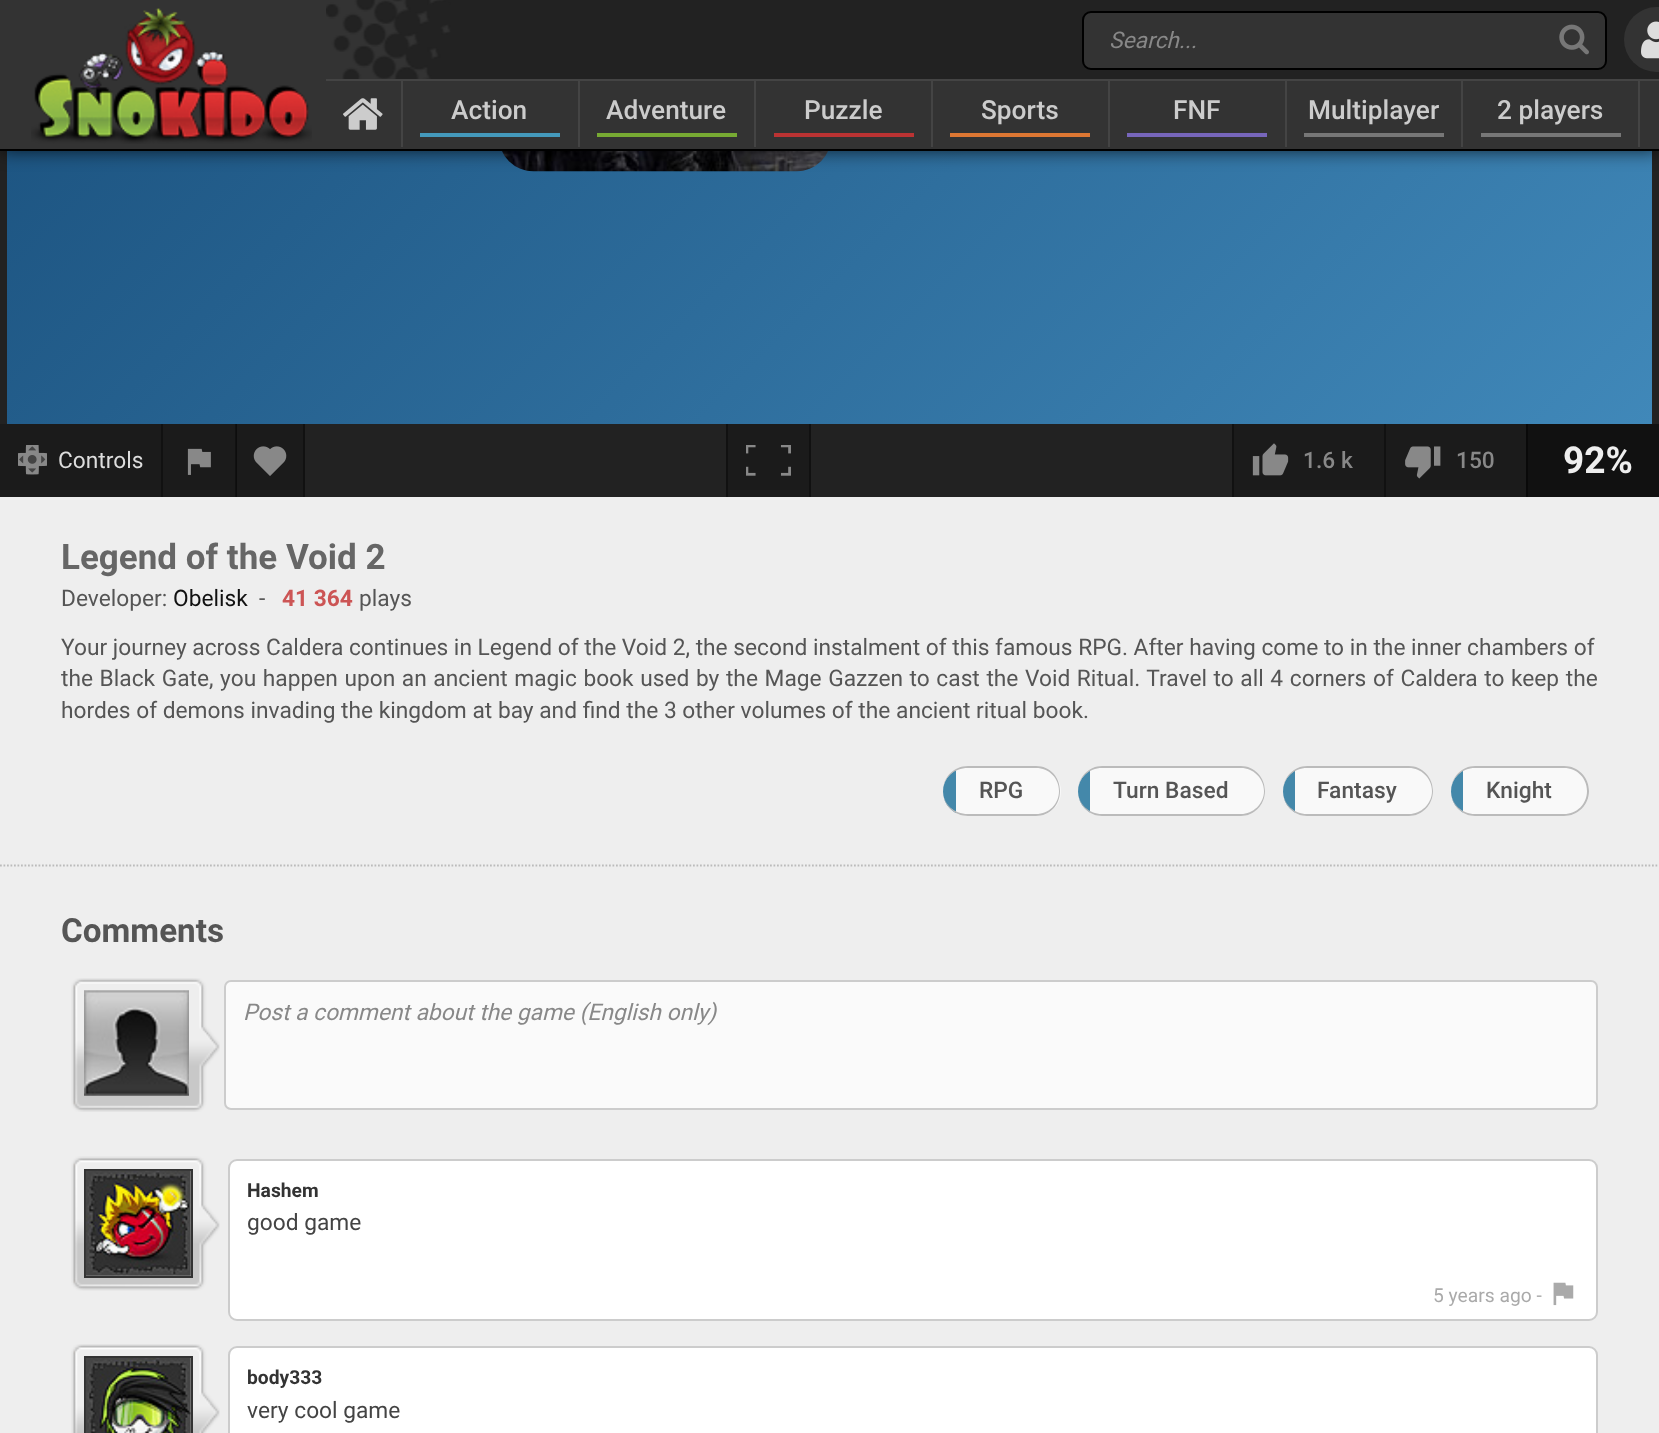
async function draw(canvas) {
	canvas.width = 1659;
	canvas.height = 1433;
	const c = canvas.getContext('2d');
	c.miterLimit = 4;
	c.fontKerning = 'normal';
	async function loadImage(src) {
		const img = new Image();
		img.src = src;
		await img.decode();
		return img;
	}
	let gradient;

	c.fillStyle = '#fff';
	c.fillRect(0, 0, 1659, 1433);
	gradient = c.createLinearGradient(201, -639, 1458, 618);
	gradient.addColorStop(0, '#134672');
	gradient.addColorStop(1, '#4088b9');
	c.fillStyle = gradient;
	c.fillRect(7, 151, 1645, 273);
	c.fillStyle = '#222';
	c.beginPath();
	c.moveTo(18, -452);
	c.lineTo(1642, -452);
	c.bezierCurveTo(1651, -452, 1659, -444, 1659, -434);
	c.lineTo(1659, 424);
	c.lineTo(0, 424);
	c.lineTo(0, -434);
	c.bezierCurveTo(0, -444, 8, -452, 18, -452);
	c.closePath();
	c.moveTo(18, -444);
	c.lineTo(1642, -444);
	c.bezierCurveTo(1647, -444, 1652, -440, 1652, -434);
	c.lineTo(1652, 424);
	c.lineTo(7, 424);
	c.lineTo(7, -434);
	c.bezierCurveTo(7, -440, 12, -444, 18, -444);
	c.closePath();
	c.fill('evenodd');
	c.drawImage(await loadImage('img6.png'), 502, 151, 326, 21);
	c.fillStyle = '#000000b3';
	c.filter = 'blur(9px)';
	c.beginPath();
	c.rect(0, 0, 1659, 151);
	c.fill();
	c.filter = 'none';
	c.fillStyle = '#333';
	c.fillRect(0, 0, 1659, 149);
	c.fillStyle = '#000';
	c.fillRect(0, 149, 1659, 2);
	c.drawImage(await loadImage('img1.png'), 31, 8, 281, 136);
	c.drawImage(await loadImage('img2.png'), 326, 0, 1333, 79);
	c.fillStyle = '#444';
	c.fillRect(326, 79, 1333, 2);
	c.fillStyle = '#333';
	c.beginPath();
	c.roundRect(1083, 12, 523, 57, 8);
	c.fill();
	c.strokeStyle = '#000';
	c.lineWidth = 2;
	c.stroke();
	c.font = 'italic 22.75px Roboto';
	c.fillStyle = '#888';
	c.fillText('Search...', 1109, 48);
	c.drawImage(await loadImage('img3.png'), 1559, 24, 30, 31);
	c.fillStyle = '#333';
	c.beginPath();
	c.arc(1656.5, 39.5, 32.5, 0, 2 * Math.PI);
	c.fill();
	c.drawImage(await loadImage('img4.png'), 1641, 21, 18, 38);
	c.fillStyle = '#444';
	c.fillRect(401, 81, 2, 66);
	c.drawImage(await loadImage('img5.png'), 343, 98, 40, 32);
	c.fillRect(578, 81, 2, 66);
	c.fillStyle = '#49b';
	c.fillRect(420, 133, 140, 4);
	c.font = '500 26.25px Roboto';
	c.fillStyle = '#ccc';
	c.fillText('Action', 451, 119);
	c.fillStyle = '#444';
	c.fillRect(754, 81, 2, 66);
	c.fillStyle = '#7a3';
	c.fillRect(597, 133, 140, 4);
	c.fillStyle = '#ccc';
	c.fillText('Adventure', 606, 119);
	c.fillStyle = '#444';
	c.fillRect(931, 81, 2, 66);
	c.fillStyle = '#b33';
	c.fillRect(774, 133, 140, 4);
	c.fillStyle = '#ccc';
	c.fillText('Puzzle', 804, 119);
	c.fillStyle = '#444';
	c.fillRect(1108, 81, 2, 66);
	c.fillStyle = '#d73';
	c.fillRect(950, 133, 140, 4);
	c.fillStyle = '#ccc';
	c.fillText('Sports', 981, 119);
	c.fillStyle = '#444';
	c.fillRect(1285, 81, 2, 66);
	c.fillStyle = '#76b';
	c.fillRect(1127, 133, 140, 4);
	c.fillStyle = '#ccc';
	c.fillText('FNF', 1173, 119);
	c.fillStyle = '#444';
	c.fillRect(1461, 81, 2, 66);
	c.fillStyle = '#777';
	c.fillRect(1304, 133, 140, 4);
	c.fillStyle = '#ccc';
	c.fillText('Multiplayer', 1308, 119);
	c.fillStyle = '#444';
	c.fillRect(1638, 81, 2, 66);
	c.fillStyle = '#777';
	c.fillRect(1481, 133, 140, 4);
	c.fillStyle = '#ccc';
	c.fillText('2 players', 1497, 119);
	for (const [x, y, w, h, color] of [
		[237, 424, 995, 73, '#222'],
		[0, 424, 161, 73, '#1b1b1b'],
		[161, 424, 2, 73, '#111'],
	]) {
		c.fillStyle = color;
		c.fillRect(x, y, w, h);
	}
	c.drawImage(await loadImage('img7.png'), 18, 445, 29, 30);
	c.font = '22.75px Roboto';
	c.fillStyle = '#ddd';
	c.fillText('Controls', 58, 468);
	c.fillStyle = '#1b1b1b';
	c.fillRect(163, 424, 72, 73);
	c.fillStyle = '#111';
	c.fillRect(235, 424, 2, 73);
	c.drawImage(await loadImage('img8.png'), 187, 448, 24, 27);
	c.fillStyle = '#00000033';
	c.fillRect(236, 424, 67, 73);
	c.fillStyle = '#111';
	c.fillRect(303, 424, 2, 73);
	c.drawImage(await loadImage('img9.png'), 253, 446, 34, 30);
	for (const [x, y, w, h, color] of [
		[728, 424, 81, 73, '#1b1b1b'],
		[809, 424, 2, 73, '#111'],
		[726, 424, 2, 73, '#111'],
	]) {
		c.fillStyle = color;
		c.fillRect(x, y, w, h);
	}
	c.drawImage(await loadImage('img10.png'), 746, 445, 45, 31);
	c.fillStyle = '#1b1b1b';
	c.fillRect(1234, 424, 150, 73);
	c.fillStyle = '#111';
	c.fillRect(1232, 424, 2, 73);
	c.drawImage(await loadImage('img11.png'), 1252, 443, 37, 33);
	c.font = '500 22.75px Roboto';
	c.fillStyle = '#888';
	c.fillText('1.6 k', 1303, 468);
	c.fillStyle = '#1b1b1b';
	c.fillRect(1386, 424, 140, 73);
	c.fillStyle = '#111';
	c.fillRect(1384, 424, 2, 73);
	c.drawImage(await loadImage('img12.png'), 1405, 446, 36, 33);
	c.fillStyle = '#888';
	c.fillText('150', 1456, 468);
	c.fillStyle = '#111';
	c.fillRect(1528, 424, 131, 73);
	c.fillStyle = '#090909';
	c.fillRect(1526, 424, 2, 73);
	c.font = 'bold 37px Roboto';
	c.fillStyle = '#eee';
	c.fillText('92%', 1563, 473);
	c.fillRect(0, 497, 1659, 936);
	c.beginPath();
	c.moveTo(0, 865.5);
	c.lineTo(1659, 865.5);
	c.strokeStyle = '#bbb';
	c.lineWidth = 1.8;
	c.setLineDash([1.75, 1.75]);
	c.stroke();
	c.font = 'bold 35px Roboto';
	c.fillStyle = '#666';
	c.fillText('Legend of the Void 2', 61, 569);
	c.font = '22.75px Roboto';
	c.fillStyle = '#555';
	c.fillText('Developer:', 61, 606);
	c.fillStyle = '#111';
	c.fillText('Obelisk', 173, 606);
	c.fillStyle = '#555';
	c.fillText('-', 259, 606);
	c.font = 'bold 22.75px Roboto';
	c.fillStyle = '#c55';
	c.fillText('41 364', 282, 606);
	c.font = '22.75px Roboto';
	c.fillStyle = '#555';
	c.fillText('plays', 359, 606);
	c.fillText('Your journey across Caldera continues in Legend of the Void 2, the second instalment of this famous RPG. After having come to in the inner chambers of', 61, 655);
	c.wordSpacing = '0.95px';
	c.fillText('the Black Gate, you happen upon an ancient magic book used by the Mage Gazzen to cast the Void Ritual. Travel to all 4 corners of Caldera to keep the', 61, 686);
	c.wordSpacing = '0px';
	c.fillText('hordes of demons invading the kingdom at bay and find the 3 other volumes of the ancient ritual book.', 61, 718);
	c.fillStyle = '#f9f9f9';
	c.beginPath();
	c.roundRect(943, 767, 118, 49, 24.5);
	c.fill();
	c.save();
	c.beginPath();
	c.roundRect(943, 767, 118, 49, 24.5);
	c.clip();
	c.fillStyle = '#48a';
	c.fillRect(943, 770, 13, 43);
	c.restore();
	c.fillStyle = '#bbb';
	c.beginPath();
	c.moveTo(968, 766);
	c.lineTo(1036, 766);
	c.bezierCurveTo(1050, 766, 1060, 777, 1060, 791);
	c.bezierCurveTo(1060, 805, 1050, 816, 1036, 816);
	c.lineTo(968, 816);
	c.bezierCurveTo(954, 816, 943, 805, 943, 791);
	c.bezierCurveTo(943, 777, 954, 766, 968, 766);
	c.closePath();
	c.moveTo(968, 768);
	c.lineTo(1036, 768);
	c.bezierCurveTo(1049, 768, 1059, 778, 1059, 791);
	c.bezierCurveTo(1059, 804, 1049, 814, 1036, 814);
	c.lineTo(968, 814);
	c.bezierCurveTo(954, 814, 943, 804, 943, 791);
	c.bezierCurveTo(943, 778, 954, 768, 968, 768);
	c.closePath();
	c.fill('evenodd');
	c.font = '500 22.75px Roboto';
	c.fillStyle = '#555';
	c.fillText('RPG', 979, 798);
	c.fillStyle = '#f9f9f9';
	c.beginPath();
	c.roundRect(1078, 767, 187, 49, 24.5);
	c.fill();
	c.save();
	c.beginPath();
	c.roundRect(1078, 767, 187, 49, 24.5);
	c.clip();
	c.fillStyle = '#48a';
	c.fillRect(1078, 771, 12, 42);
	c.restore();
	c.fillStyle = '#bbb';
	c.beginPath();
	c.moveTo(1102, 766);
	c.lineTo(1241, 766);
	c.bezierCurveTo(1254, 766, 1265, 777, 1265, 791);
	c.bezierCurveTo(1265, 805, 1254, 816, 1241, 816);
	c.lineTo(1102, 816);
	c.bezierCurveTo(1089, 816, 1078, 805, 1078, 791);
	c.bezierCurveTo(1078, 777, 1089, 766, 1102, 766);
	c.closePath();
	c.moveTo(1102, 768);
	c.lineTo(1241, 768);
	c.bezierCurveTo(1253, 768, 1264, 778, 1264, 791);
	c.bezierCurveTo(1264, 804, 1253, 814, 1241, 814);
	c.lineTo(1102, 814);
	c.bezierCurveTo(1089, 814, 1078, 804, 1078, 791);
	c.bezierCurveTo(1078, 778, 1089, 768, 1102, 768);
	c.closePath();
	c.fill('evenodd');
	c.fillStyle = '#555';
	c.fillText('Turn Based', 1113, 798);
	c.fillStyle = '#f9f9f9';
	c.beginPath();
	c.roundRect(1283, 767, 150, 49, 24.5);
	c.fill();
	c.save();
	c.beginPath();
	c.roundRect(1283, 767, 150, 49, 24.5);
	c.clip();
	c.fillStyle = '#48a';
	c.fillRect(1283, 771, 12, 42);
	c.restore();
	c.fillStyle = '#bbb';
	c.beginPath();
	c.moveTo(1307, 766);
	c.lineTo(1409, 766);
	c.bezierCurveTo(1422, 766, 1433, 777, 1433, 791);
	c.bezierCurveTo(1433, 805, 1422, 816, 1409, 816);
	c.lineTo(1307, 816);
	c.bezierCurveTo(1294, 816, 1283, 805, 1283, 791);
	c.bezierCurveTo(1283, 777, 1294, 766, 1307, 766);
	c.closePath();
	c.moveTo(1307, 768);
	c.lineTo(1409, 768);
	c.bezierCurveTo(1421, 768, 1432, 778, 1432, 791);
	c.bezierCurveTo(1432, 804, 1421, 814, 1409, 814);
	c.lineTo(1307, 814);
	c.bezierCurveTo(1294, 814, 1283, 804, 1283, 791);
	c.bezierCurveTo(1283, 778, 1294, 768, 1307, 768);
	c.closePath();
	c.fill('evenodd');
	c.fillStyle = '#555';
	c.fillText('Fantasy', 1317, 798);
	c.fillStyle = '#f9f9f9';
	c.beginPath();
	c.roundRect(1451, 767, 138, 49, 24.5);
	c.fill();
	c.save();
	c.beginPath();
	c.roundRect(1451, 767, 138, 49, 24.5);
	c.clip();
	c.fillStyle = '#48a';
	c.fillRect(1451, 771, 12, 42);
	c.restore();
	c.fillStyle = '#bbb';
	c.beginPath();
	c.moveTo(1475, 766);
	c.lineTo(1564, 766);
	c.bezierCurveTo(1578, 766, 1589, 777, 1589, 791);
	c.bezierCurveTo(1589, 805, 1578, 816, 1564, 816);
	c.lineTo(1475, 816);
	c.bezierCurveTo(1462, 816, 1451, 805, 1451, 791);
	c.bezierCurveTo(1451, 777, 1462, 766, 1475, 766);
	c.closePath();
	c.moveTo(1475, 768);
	c.lineTo(1564, 768);
	c.bezierCurveTo(1577, 768, 1587, 778, 1587, 791);
	c.bezierCurveTo(1587, 804, 1577, 814, 1564, 814);
	c.lineTo(1475, 814);
	c.bezierCurveTo(1462, 814, 1451, 804, 1451, 791);
	c.bezierCurveTo(1451, 778, 1462, 768, 1475, 768);
	c.closePath();
	c.fill('evenodd');
	c.fillStyle = '#555';
	c.fillText('Knight', 1486, 798);
	c.font = 'bold 33.25px Roboto';
	c.fillText('Comments', 61, 942);
	c.drawImage(await loadImage('img13.png'), 71, 978, 149, 134);
	c.drawImage(await loadImage('img14.png'), 84, 990, 105, 106);
	c.fillStyle = '#fafafa';
	c.beginPath();
	c.roundRect(225, 981, 1372, 128, 6);
	c.fill();
	c.strokeStyle = '#ccc';
	c.lineWidth = 2;
	c.setLineDash([]);
	c.stroke();
	c.font = 'italic 22.75px Roboto';
	c.fillStyle = '#888';
	c.fillText('Post a comment about the game (English only)', 243, 1020);
	c.drawImage(await loadImage('img15.png'), 71, 1156, 149, 135);
	c.strokeStyle = '#333';
	c.strokeRect(85, 1170, 107, 107);
	c.drawImage(await loadImage('img16.png'), 85, 1170, 106, 106);
	c.fillStyle = '#fff';
	c.beginPath();
	c.roundRect(229, 1160, 1368, 160, 8);
	c.fill();
	c.strokeStyle = '#ccc';
	c.stroke();
	c.font = 'bold 19.25px Roboto';
	c.fillStyle = '#333';
	c.fillText('Hashem', 247, 1197);
	c.font = '22.75px Roboto';
	c.fillStyle = '#444';
	c.fillText('good game', 247, 1230);
	c.font = '19.25px Roboto';
	c.fillStyle = '#aaa';
	c.fillText('5 years ago -', 1433, 1302);
	c.drawImage(await loadImage('img17.png'), 1553, 1282, 21, 24);
	c.drawImage(await loadImage('img18.png'), 71, 1344, 149, 89);
	c.strokeStyle = '#333';
	c.strokeRect(85, 1357, 107, 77);
	c.drawImage(await loadImage('img19.png'), 85, 1358, 106, 75);
	c.fillStyle = '#fff';
	c.beginPath();
	c.roundRect(229, 1347, 1368, 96, 8);
	c.fill();
	c.strokeStyle = '#ccc';
	c.stroke();
	c.font = 'bold 19.25px Roboto';
	c.fillStyle = '#333';
	c.fillText('body333', 247, 1384);
	c.font = '22.75px Roboto';
	c.fillStyle = '#444';
	c.fillText('very cool game', 247, 1418);
}

draw(document.querySelector('canvas'));
